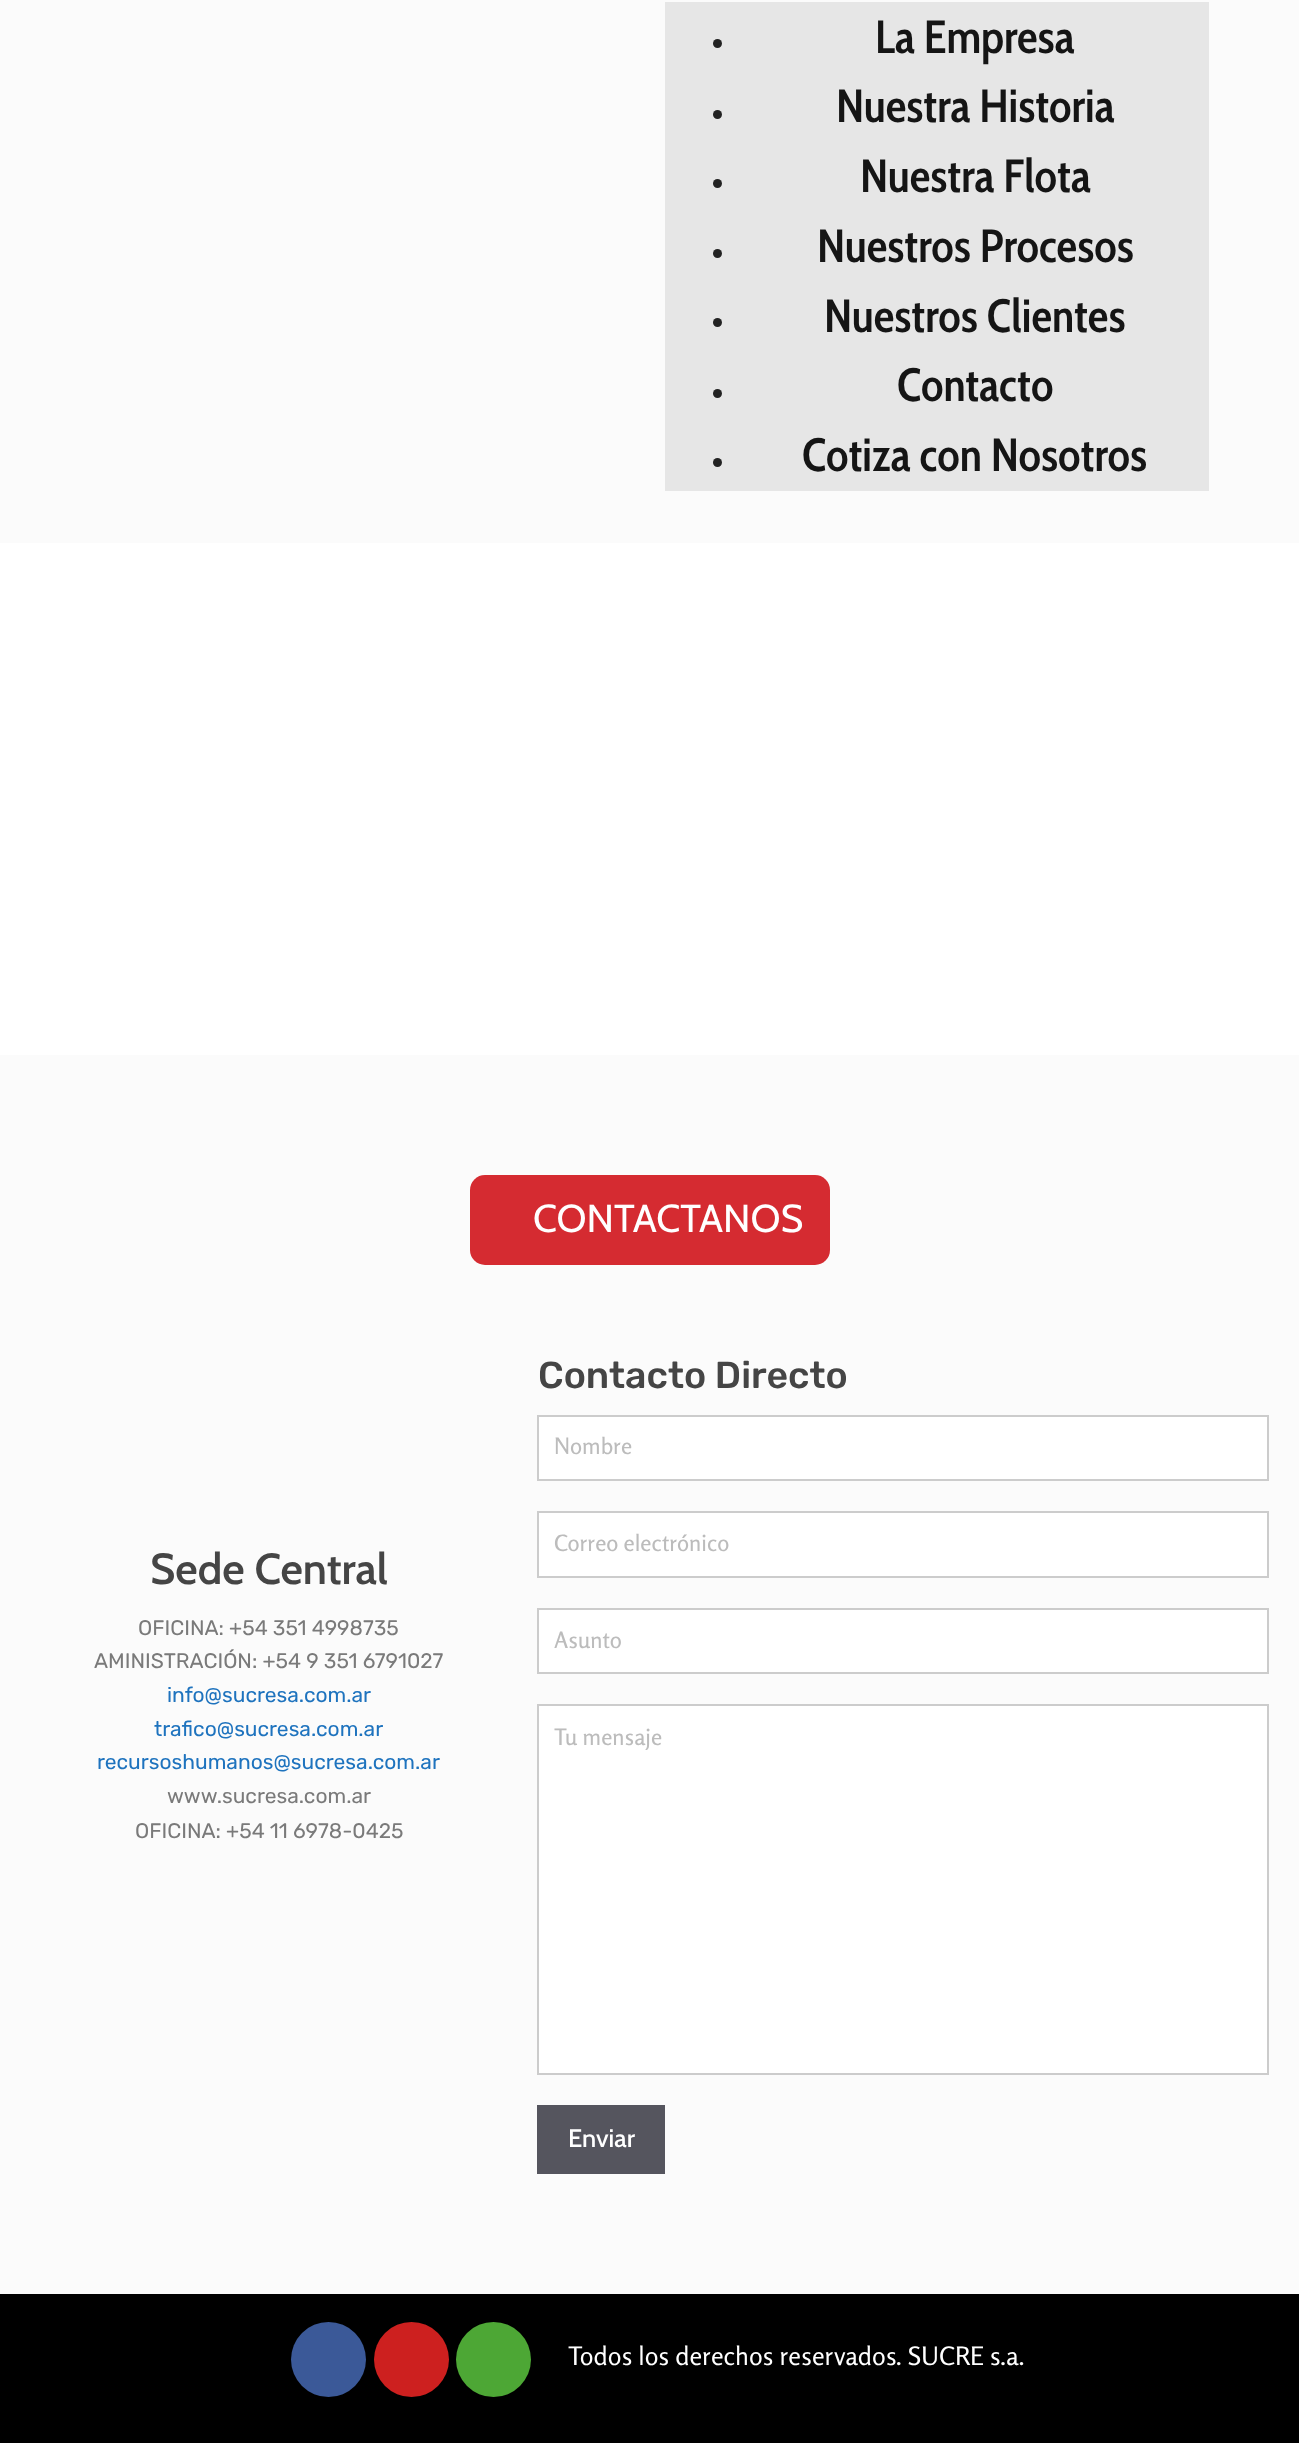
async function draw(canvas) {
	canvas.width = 1299;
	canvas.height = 2443;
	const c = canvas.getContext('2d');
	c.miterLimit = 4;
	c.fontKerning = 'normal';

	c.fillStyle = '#fff';
	c.fillRect(0, 0, 1299, 2443);
	c.fillStyle = '#fbfbfb';
	c.fillRect(0, 0, 1299, 543);
	c.fillStyle = '#e6e6e6';
	c.fillRect(665, 2, 544, 489);
	c.fillStyle = '#222';
	c.beginPath();
	c.arc(717.5, 43.5, 4.5, 0, 2 * Math.PI);
	c.fill();
	c.font = '600 46.5px Cabin Condensed';
	c.fillStyle = '#151515';
	c.fillText('La Empresa', 875, 53);
	c.fillStyle = '#222';
	c.beginPath();
	c.arc(717.5, 114.5, 4.5, 0, 2 * Math.PI);
	c.fill();
	c.fillStyle = '#151515';
	c.fillText('Nuestra Historia', 836, 122);
	c.fillStyle = '#222';
	c.beginPath();
	c.arc(717.5, 183.5, 4.5, 0, 2 * Math.PI);
	c.fill();
	c.fillStyle = '#151515';
	c.fillText('Nuestra Flota', 860, 192);
	c.fillStyle = '#222';
	c.beginPath();
	c.arc(717.5, 253.5, 4.5, 0, 2 * Math.PI);
	c.fill();
	c.fillStyle = '#151515';
	c.fillText('Nuestros Procesos', 817, 262);
	c.fillStyle = '#222';
	c.beginPath();
	c.arc(717.5, 322.5, 4.5, 0, 2 * Math.PI);
	c.fill();
	c.fillStyle = '#151515';
	c.fillText('Nuestros Clientes', 824, 332);
	c.fillStyle = '#222';
	c.beginPath();
	c.arc(717.5, 393.5, 4.5, 0, 2 * Math.PI);
	c.fill();
	c.fillStyle = '#151515';
	c.fillText('Contacto', 897, 401);
	c.fillStyle = '#222';
	c.beginPath();
	c.arc(717.5, 462.5, 4.5, 0, 2 * Math.PI);
	c.fill();
	c.fillStyle = '#151515';
	c.fillText('Cotiza con Nosotros', 802, 471);
	c.fillStyle = '#fbfbfb';
	c.fillRect(0, 1055, 1299, 1239);
	c.fillStyle = '#d52b31';
	c.beginPath();
	c.roundRect(470, 1175, 360, 90, 15);
	c.fill();
	c.font = '39px Cabin';
	c.fillStyle = '#fff';
	c.fillText('CONTACTANOS', 533, 1232);
	c.font = '600 43.5px Cabin';
	c.fillStyle = '#454545';
	c.fillText('Sede Central', 150, 1584);
	c.font = '21px Rubik';
	c.fillStyle = '#7a7a7a';
	c.fillText('OFICINA: +54 351 4998735', 138, 1635);
	c.fillText('AMINISTRACIÓN: +54 9 351 6791027', 94, 1668);
	c.fillStyle = '#1e73be';
	for (const [text, x, y] of [
		['info@sucresa.com.ar', 167, 1702],
		['trafico@sucresa.com.ar', 154, 1736],
		['recursoshumanos@sucresa.com.ar', 97, 1769],
	]) {
		c.fillText(text, x, y);
	}
	c.fillStyle = '#7a7a7a';
	c.fillText('www.sucresa.com.ar', 167, 1803);
	c.fillText('OFICINA: +54 11 6978-0425', 135, 1838);
	c.font = '500 37.5px Rubik';
	c.fillStyle = '#454545';
	c.fillText('Contacto Directo', 538, 1388);
	c.fillStyle = '#fff';
	c.beginPath();
	c.rect(538, 1416, 730, 64);
	c.fill();
	c.strokeStyle = '#ccc';
	c.lineWidth = 2;
	c.stroke();
	c.font = '500 22.5px Rosario';
	c.fillStyle = '#bcbcbc';
	c.fillText('Nombre', 554, 1454);
	c.fillStyle = '#fff';
	c.beginPath();
	c.rect(538, 1512, 730, 65);
	c.fill();
	c.stroke();
	c.fillStyle = '#bcbcbc';
	c.fillText('Correo electrónico', 554, 1551);
	c.fillStyle = '#fff';
	c.beginPath();
	c.rect(538, 1609, 730, 64);
	c.fill();
	c.stroke();
	c.fillStyle = '#bcbcbc';
	c.fillText('Asunto', 554, 1648);
	c.fillStyle = '#fff';
	c.beginPath();
	c.rect(538, 1705, 730, 369);
	c.fill();
	c.stroke();
	c.fillStyle = '#bcbcbc';
	c.fillText('Tu mensaje', 554, 1745);
	c.fillStyle = '#55555e';
	c.fillRect(537, 2105, 128, 69);
	c.font = '500 25.5px Cabin';
	c.fillStyle = '#fff';
	c.fillText('Enviar', 568, 2147);
	c.fillStyle = '#000';
	c.fillRect(0, 2294, 1299, 149);
	c.fillStyle = '#3b5998';
	c.beginPath();
	c.arc(328.5, 2359.5, 37.5, 0, 2 * Math.PI);
	c.fill();
	c.fillStyle = '#cd201f';
	c.beginPath();
	c.arc(411.5, 2359.5, 37.5, 0, 2 * Math.PI);
	c.fill();
	c.fillStyle = '#4da735';
	c.beginPath();
	c.arc(493.5, 2359.5, 37.5, 0, 2 * Math.PI);
	c.fill();
	c.font = '25.5px Rosario';
	c.fillStyle = '#fff';
	c.fillText('Todos los derechos reservados. SUCRE s.a.', 568, 2365);
}

draw(document.querySelector('canvas'));
